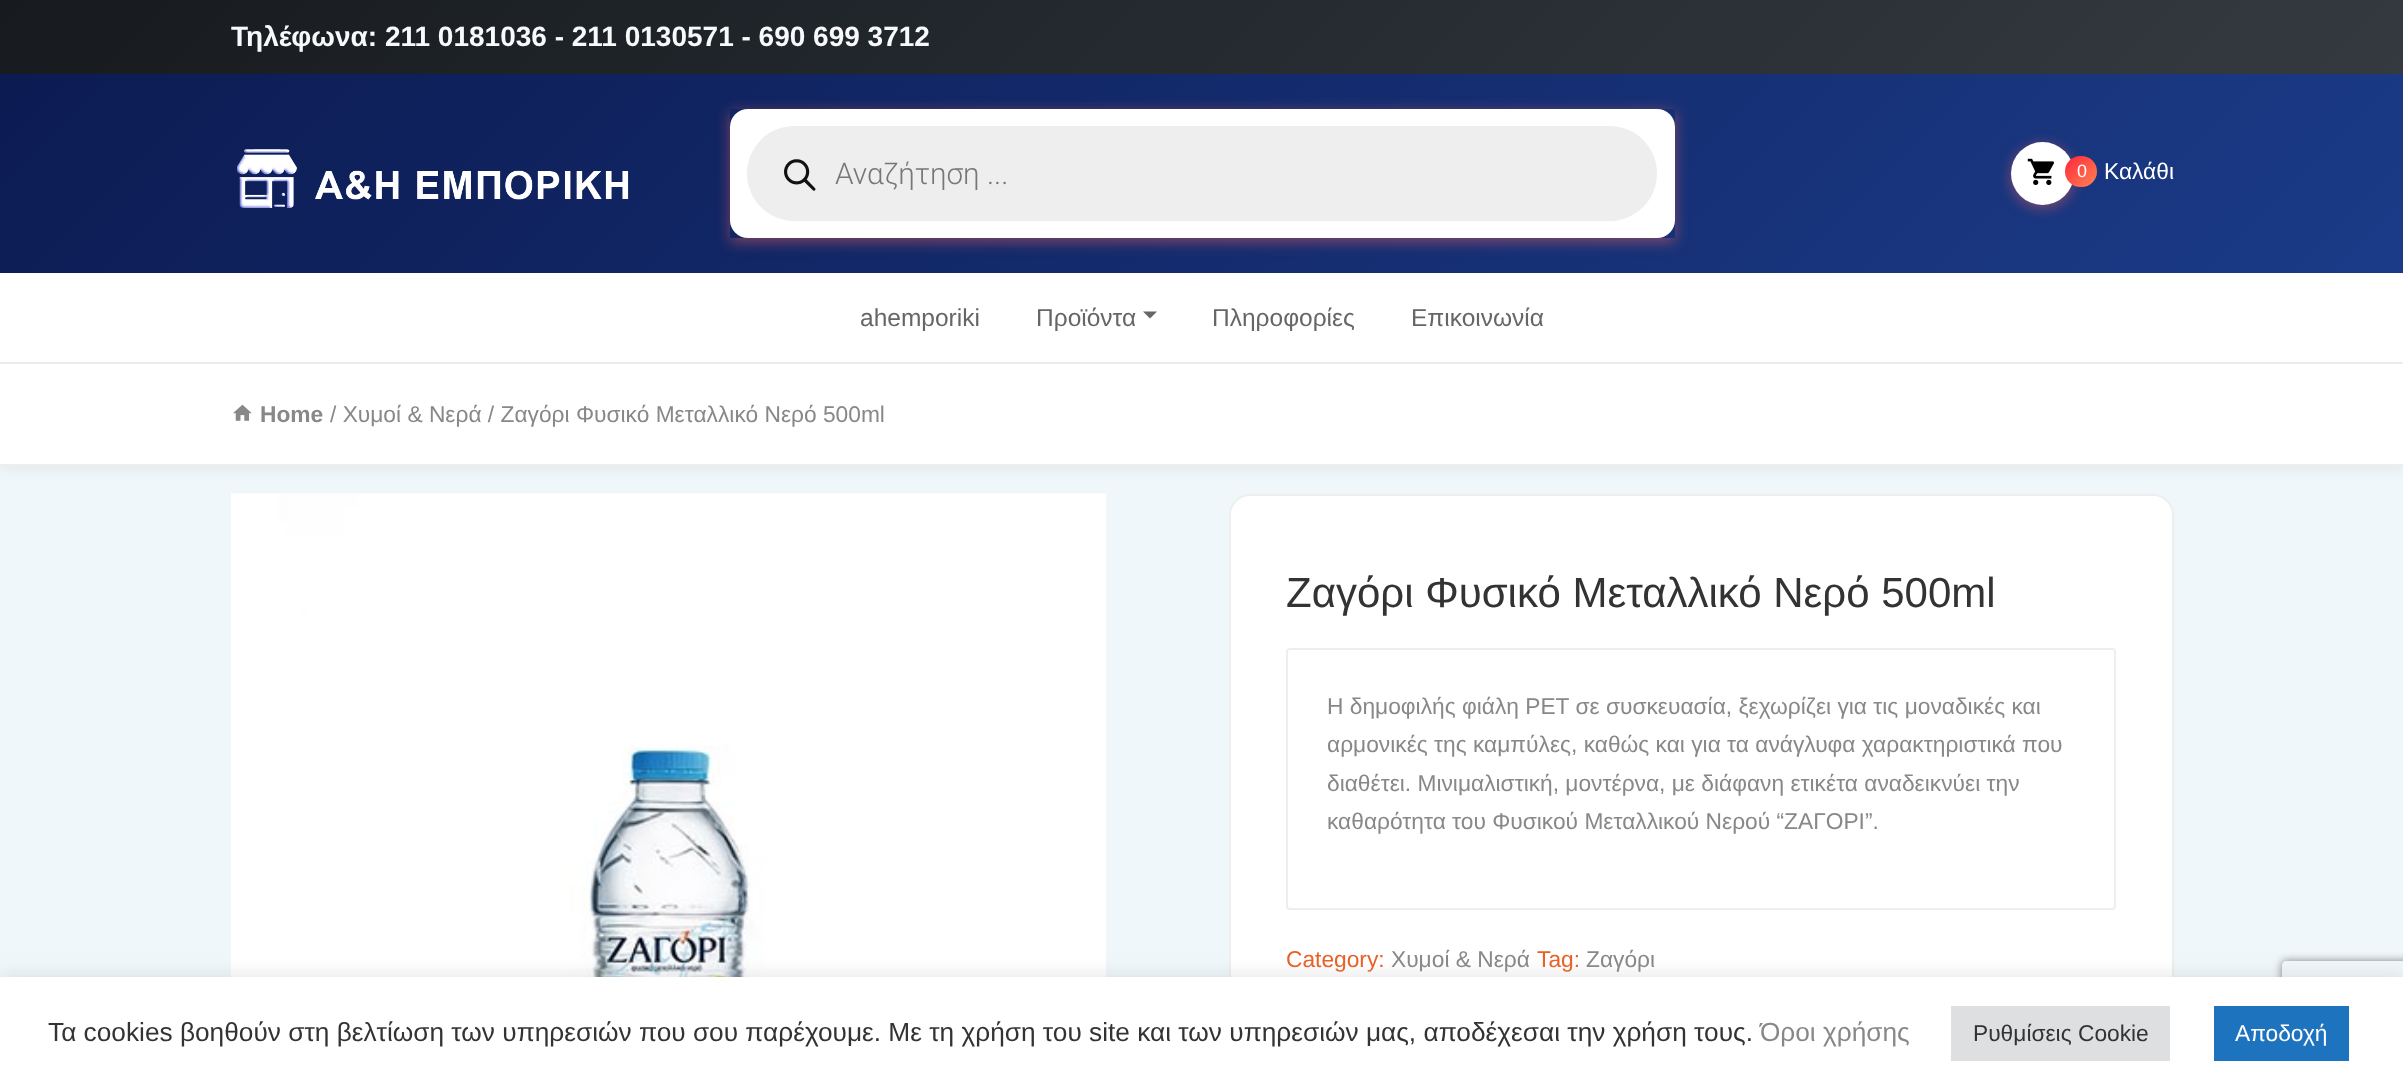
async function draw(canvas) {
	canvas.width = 2403;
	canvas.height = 1090;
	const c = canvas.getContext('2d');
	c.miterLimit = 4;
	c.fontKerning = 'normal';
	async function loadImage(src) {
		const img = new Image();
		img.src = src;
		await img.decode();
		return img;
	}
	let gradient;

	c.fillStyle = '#eff7fa';
	c.fillRect(0, 0, 2403, 1090);
	gradient = c.createLinearGradient(583, -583, 1822, 656);
	gradient.addColorStop(0.01, '#171b20');
	gradient.addColorStop(1, '#343a40');
	c.fillStyle = gradient;
	c.fillRect(0, 0, 2403, 74);
	c.font = 'bold 28px Liberation Sans';
	c.fillStyle = '#f8f9fa';
	c.fillText('Τηλέφωνα: 211 0181036 - 211 0130571 - 690 699 3712', 231, 46);
	gradient = c.createLinearGradient(551, -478, 1853, 824);
	gradient.addColorStop(0, '#0c1b52');
	gradient.addColorStop(1, '#1b3b88');
	c.fillStyle = gradient;
	c.fillRect(0, 74, 2403, 199);
	c.drawImage(await loadImage('img1.png'), 237, 149, 392, 59);
	c.save();
	c.beginPath();
	c.moveTo(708, 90);
	c.lineTo(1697, 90);
	c.lineTo(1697, 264);
	c.lineTo(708, 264);
	c.closePath();
	c.moveTo(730, 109);
	c.lineTo(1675, 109);
	c.lineTo(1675, 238);
	c.lineTo(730, 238);
	c.closePath();
	c.clip('evenodd');
	c.fillStyle = '#ff616275';
	c.filter = 'blur(7px)';
	c.beginPath();
	c.rect(730, 112, 945, 130);
	c.fill();
	c.filter = 'none';
	c.restore();
	c.fillStyle = '#fff';
	c.beginPath();
	c.roundRect(730, 109, 945, 129, 18);
	c.fill();
	c.fillStyle = '#eee';
	c.beginPath();
	c.roundRect(747, 126, 910, 95, 47.5);
	c.fill();
	c.drawImage(await loadImage('img2.png'), 784, 159, 32, 32);
	c.font = '300 29.75px Roboto';
	c.fillStyle = '#777';
	c.fillText('Αναζήτηση ...', 835, 184);
	c.fillStyle = '#ff616275';
	c.filter = 'blur(7px)';
	c.beginPath();
	c.roundRect(2011, 145, 63, 63, 31.5);
	c.fill();
	c.filter = 'none';
	c.fillStyle = '#fff';
	c.beginPath();
	c.arc(2042.5, 173.5, 31.5, 0, 2 * Math.PI);
	c.fill();
	c.drawImage(await loadImage('img3.png'), 2027, 158, 27, 27);
	c.font = '22.75px Liberation Sans';
	c.fillText('Καλάθι', 2104, 179);
	gradient = c.createLinearGradient(2065, 156, 2097, 187);
	gradient.addColorStop(0, '#ff253a');
	gradient.addColorStop(1, '#ff8453');
	c.fillStyle = gradient;
	c.beginPath();
	c.roundRect(2065, 156, 32, 31, 15.5);
	c.fill();
	c.font = '18px Liberation Sans';
	c.fillStyle = '#fff';
	c.fillText('0', 2077, 177);
	c.fillStyle = '#0000000f';
	c.filter = 'blur(7px)';
	c.beginPath();
	c.rect(0, 366, 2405, 103);
	c.fill();
	c.filter = 'none';
	c.fillStyle = '#fff';
	c.fillRect(0, 273, 2403, 89);
	c.font = '24.5px Liberation Sans';
	c.fillStyle = '#666';
	c.fillText('ahemporiki', 860, 326);
	c.fillText('Προϊόντα', 1036, 326);
	c.beginPath();
	c.moveTo(1143, 311.5);
	c.lineTo(1157, 311.5);
	c.lineTo(1150, 318.5);
	c.closePath();
	c.fill();
	c.fillText('Πληροφορίες', 1212, 326);
	c.fillText('Επικοινωνία', 1411, 326);
	for (const [x, y, w, h, color] of [
		[0, 364, 2403, 100, '#fff'],
		[0, 362, 2403, 2, '#ececec'],
		[0, 464, 2403, 2, '#eee'],
	]) {
		c.fillStyle = color;
		c.fillRect(x, y, w, h);
	}
	c.drawImage(await loadImage('img4.png'), 233, 404, 19, 17);
	c.font = 'bold 22.75px Liberation Sans';
	c.fillStyle = '#888';
	c.fillText('Home', 260, 422);
	c.font = '22.75px Liberation Sans';
	c.fillText('/ Χυμοί & Νερά / Ζαγόρι Φυσικό Μεταλλικό Νερό 500ml', 330, 422);
	c.drawImage(await loadImage('img5.png'), 231, 493, 875, 484);
	c.fillStyle = '#fff';
	c.beginPath();
	c.roundRect(1230, 495, 943, 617, 20);
	c.fill();
	c.strokeStyle = '#eee';
	c.lineWidth = 2;
	c.stroke();
	c.font = '42px Liberation Sans';
	c.fillStyle = '#333';
	c.fillText('Ζαγόρι Φυσικό Μεταλλικό Νερό 500ml', 1286, 607);
	c.beginPath();
	c.roundRect(1287, 649, 828, 260, 3);
	c.stroke();
	c.font = '22.75px Liberation Sans';
	c.fillStyle = '#888';
	for (const [text, x, y] of [
		['Η δημοφιλής φιάλη PET σε συσκευασία, ξεχωρίζει για τις μοναδικές και', 1327, 714],
		['αρμονικές της καμπύλες, καθώς και για τα ανάγλυφα χαρακτηριστικά που', 1327, 752],
		['διαθέτει. Μινιμαλιστική, μοντέρνα, με διάφανη ετικέτα αναδεικνύει την', 1327, 791],
		['καθαρότητα του Φυσικού Μεταλλικού Νερού “ΖΑΓΟΡΙ”.', 1327, 829],
	]) {
		c.fillText(text, x, y);
	}
	c.fillStyle = '#e96125';
	c.fillText('Category:', 1286, 967);
	c.fillStyle = '#888';
	c.fillText('Χυμοί & Νερά', 1391, 967);
	c.fillStyle = '#e96125';
	c.fillText('Tag:', 1537, 967);
	c.fillStyle = '#888';
	c.fillText('Ζαγόρι', 1586, 967);
	c.fillStyle = '#acabab4d';
	c.filter = 'blur(9px)';
	c.beginPath();
	c.rect(0, 975, 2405, 114);
	c.fill();
	c.filter = 'none';
	c.save();
	c.beginPath();
	c.moveTo(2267, 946);
	c.lineTo(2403, 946);
	c.lineTo(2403, 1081);
	c.lineTo(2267, 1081);
	c.closePath();
	c.moveTo(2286, 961);
	c.lineTo(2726, 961);
	c.bezierCurveTo(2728, 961, 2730, 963, 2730, 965);
	c.lineTo(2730, 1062);
	c.bezierCurveTo(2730, 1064, 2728, 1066, 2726, 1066);
	c.lineTo(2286, 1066);
	c.bezierCurveTo(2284, 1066, 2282, 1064, 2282, 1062);
	c.lineTo(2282, 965);
	c.bezierCurveTo(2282, 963, 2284, 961, 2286, 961);
	c.closePath();
	c.clip('evenodd');
	c.fillStyle = '#808080';
	c.filter = 'blur(4.5px)';
	c.beginPath();
	c.roundRect(2282, 961, 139, 105, 4);
	c.fill();
	c.filter = 'none';
	c.restore();
	c.fillStyle = '#fff';
	c.fillRect(0, 977, 2403, 113);
	c.font = '26.25px Liberation Sans';
	c.fillStyle = '#333';
	c.fillText('Τα cookies βοηθούν στη βελτίωση των υπηρεσιών που σου παρέχουμε. Με τη χρήση του site και των υπηρεσιών μας, αποδέχεσαι την χρήση τους.', 48, 1041);
	c.fillStyle = '#888';
	c.fillText('Όροι χρήσης', 1760, 1041);
	c.fillStyle = '#dedfe0';
	c.fillRect(1951, 1006, 219, 55);
	c.font = '22.75px Liberation Sans';
	c.fillStyle = '#333';
	c.fillText('Ρυθμίσεις Cookie', 1973, 1041);
	c.fillStyle = '#1e73be';
	c.fillRect(2214, 1006, 135, 55);
	c.fillStyle = '#fff';
	c.fillText('Αποδοχή', 2235, 1041);
}

draw(document.querySelector('canvas'));
